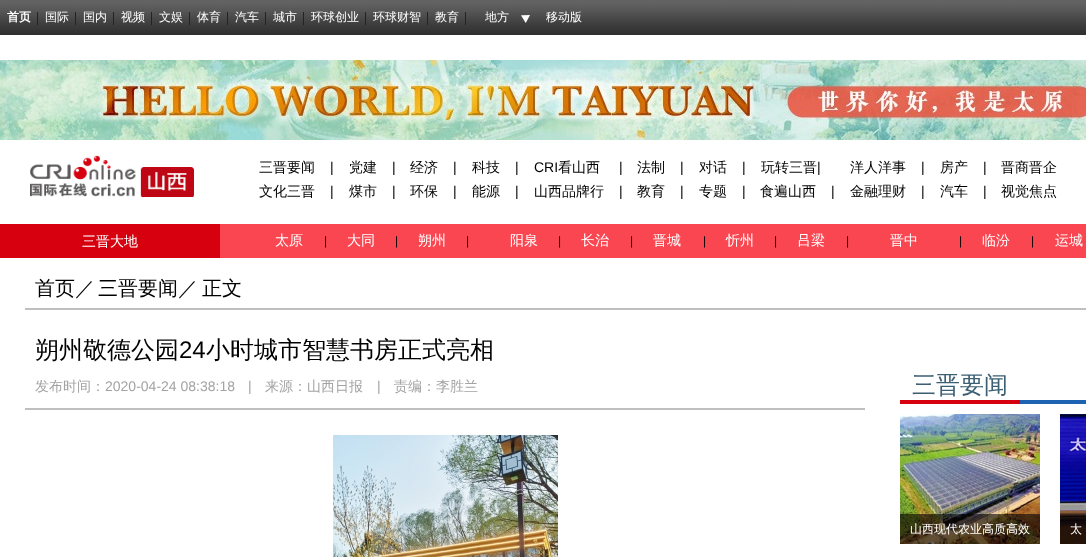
async function draw(canvas) {
	canvas.width = 1086;
	canvas.height = 557;
	const c = canvas.getContext('2d');
	c.miterLimit = 4;
	c.fontKerning = 'normal';
	async function loadImage(src) {
		const img = new Image();
		img.src = src;
		await img.decode();
		return img;
	}

	c.fillStyle = '#fff';
	c.fillRect(0, 0, 1086, 557);
	c.drawImage(await loadImage('img1.png'), 0, 0, 1086, 35);
	c.fillStyle = '#252222';
	c.fillRect(37, 12, 1, 13);
	c.font = 'bold 12px WenQuanYi Zen Hei';
	c.fillStyle = '#fff';
	c.fillText('首页', 7, 21);
	c.fillStyle = '#252222';
	c.fillRect(75, 12, 1, 13);
	c.font = '500 12px WenQuanYi Zen Hei';
	c.fillStyle = '#fff';
	c.fillText('国际', 45, 21);
	c.fillStyle = '#252222';
	c.fillRect(113, 12, 1, 13);
	c.fillStyle = '#fff';
	c.fillText('国内', 83, 21);
	c.fillStyle = '#252222';
	c.fillRect(151, 12, 1, 13);
	c.fillStyle = '#fff';
	c.fillText('视频', 121, 21);
	c.fillStyle = '#252222';
	c.fillRect(189, 12, 1, 13);
	c.fillStyle = '#fff';
	c.fillText('文娱', 159, 21);
	c.fillStyle = '#252222';
	c.fillRect(227, 12, 1, 13);
	c.fillStyle = '#fff';
	c.fillText('体育', 197, 21);
	c.fillStyle = '#252222';
	c.fillRect(265, 12, 1, 13);
	c.fillStyle = '#fff';
	c.fillText('汽车', 235, 21);
	c.fillStyle = '#252222';
	c.fillRect(303, 12, 1, 13);
	c.fillStyle = '#fff';
	c.fillText('城市', 273, 21);
	c.fillStyle = '#252222';
	c.fillRect(365, 12, 1, 13);
	c.fillStyle = '#fff';
	c.fillText('环球创业', 311, 21);
	c.fillStyle = '#252222';
	c.fillRect(427, 12, 1, 13);
	c.fillStyle = '#fff';
	c.fillText('环球财智', 373, 21);
	c.fillStyle = '#252222';
	c.fillRect(465, 12, 1, 13);
	c.fillStyle = '#fff';
	c.fillText('教育', 435, 21);
	c.drawImage(await loadImage('img2.png'), 521, 15, 9, 8);
	c.fillText('地方', 485, 21);
	c.fillText('移动版', 546, 21);
	c.drawImage(await loadImage('img3.png'), 0, 60, 1086, 80);
	c.drawImage(await loadImage('img4.png'), 30, 155, 164, 42);
	c.font = '500 14px WenQuanYi Zen Hei';
	c.fillStyle = '#000';
	c.fillText('三晋要闻', 259, 172);
	c.font = '14px Liberation Sans';
	c.fillText('|', 330, 172);
	c.font = '500 14px WenQuanYi Zen Hei';
	c.fillText('党建', 349, 172);
	c.font = '14px Liberation Sans';
	c.fillText('|', 392, 172);
	c.font = '500 14px WenQuanYi Zen Hei';
	c.fillText('经济', 410, 172);
	c.font = '14px Liberation Sans';
	c.fillText('|', 453, 172);
	c.font = '500 14px WenQuanYi Zen Hei';
	c.fillText('科技', 472, 172);
	c.font = '14px Liberation Sans';
	c.fillText('|', 515, 172);
	c.fillText('CRI', 534, 172);
	c.font = '500 14px WenQuanYi Zen Hei';
	c.fillText('看山西', 558, 172);
	c.font = '14px Liberation Sans';
	c.fillText('|', 619, 172);
	c.font = '500 14px WenQuanYi Zen Hei';
	c.fillText('法制', 637, 172);
	c.font = '14px Liberation Sans';
	c.fillText('|', 680, 172);
	c.font = '500 14px WenQuanYi Zen Hei';
	c.fillText('对话', 699, 172);
	c.font = '14px Liberation Sans';
	c.fillText('|', 742, 172);
	c.font = '500 14px WenQuanYi Zen Hei';
	c.fillText('玩转三晋', 761, 172);
	c.font = '14px Liberation Sans';
	c.fillText('|', 817, 172);
	c.font = '500 14px WenQuanYi Zen Hei';
	c.fillText('洋人洋事', 850, 172);
	c.font = '14px Liberation Sans';
	c.fillText('|', 921, 172);
	c.font = '500 14px WenQuanYi Zen Hei';
	c.fillText('房产', 940, 172);
	c.font = '14px Liberation Sans';
	c.fillText('|', 983, 172);
	c.font = '500 14px WenQuanYi Zen Hei';
	c.fillText('晋商晋企', 1001, 172);
	c.fillText('文化三晋', 259, 196);
	c.font = '14px Liberation Sans';
	c.fillText('|', 330, 196);
	c.font = '500 14px WenQuanYi Zen Hei';
	c.fillText('煤市', 349, 196);
	c.font = '14px Liberation Sans';
	c.fillText('|', 392, 196);
	c.font = '500 14px WenQuanYi Zen Hei';
	c.fillText('环保', 410, 196);
	c.font = '14px Liberation Sans';
	c.fillText('|', 453, 196);
	c.font = '500 14px WenQuanYi Zen Hei';
	c.fillText('能源', 472, 196);
	c.font = '14px Liberation Sans';
	c.fillText('|', 515, 196);
	c.font = '500 14px WenQuanYi Zen Hei';
	c.fillText('山西品牌行', 534, 196);
	c.font = '14px Liberation Sans';
	c.fillText('|', 619, 196);
	c.font = '500 14px WenQuanYi Zen Hei';
	c.fillText('教育', 637, 196);
	c.font = '14px Liberation Sans';
	c.fillText('|', 680, 196);
	c.font = '500 14px WenQuanYi Zen Hei';
	c.fillText('专题', 699, 196);
	c.font = '14px Liberation Sans';
	c.fillText('|', 742, 196);
	c.font = '500 14px WenQuanYi Zen Hei';
	c.fillText('食遍山西', 760, 196);
	c.font = '14px Liberation Sans';
	c.fillText('|', 831, 196);
	c.font = '500 14px WenQuanYi Zen Hei';
	c.fillText('金融理财', 850, 196);
	c.font = '14px Liberation Sans';
	c.fillText('|', 921, 196);
	c.font = '500 14px WenQuanYi Zen Hei';
	c.fillText('汽车', 940, 196);
	c.font = '14px Liberation Sans';
	c.fillText('|', 983, 196);
	c.font = '500 14px WenQuanYi Zen Hei';
	c.fillText('视觉焦点', 1001, 196);
	c.fillStyle = '#fa4650';
	c.fillRect(220, 224, 866, 34);
	c.fillStyle = '#d7000f';
	c.fillRect(0, 224, 220, 34);
	c.fillStyle = '#fff';
	c.fillText('三晋大地', 82, 246);
	c.fillText('太原', 275, 245);
	c.font = '12px Liberation Sans';
	c.fillStyle = '#000';
	c.fillText('|', 324, 245);
	c.font = '500 14px WenQuanYi Zen Hei';
	c.fillStyle = '#fff';
	c.fillText('大同', 347, 245);
	c.font = '12px Liberation Sans';
	c.fillStyle = '#000';
	c.fillText('|', 395, 245);
	c.font = '500 14px WenQuanYi Zen Hei';
	c.fillStyle = '#fff';
	c.fillText('朔州', 418, 245);
	c.font = '12px Liberation Sans';
	c.fillStyle = '#000';
	c.fillText('|', 466, 245);
	c.font = '500 14px WenQuanYi Zen Hei';
	c.fillStyle = '#fff';
	c.fillText('阳泉', 510, 245);
	c.font = '12px Liberation Sans';
	c.fillStyle = '#000';
	c.fillText('|', 558, 245);
	c.font = '500 14px WenQuanYi Zen Hei';
	c.fillStyle = '#fff';
	c.fillText('长治', 581, 245);
	c.font = '12px Liberation Sans';
	c.fillStyle = '#000';
	c.fillText('|', 630, 245);
	c.font = '500 14px WenQuanYi Zen Hei';
	c.fillStyle = '#fff';
	c.fillText('晋城', 653, 245);
	c.font = '12px Liberation Sans';
	c.fillStyle = '#000';
	c.fillText('|', 703, 245);
	c.font = '500 14px WenQuanYi Zen Hei';
	c.fillStyle = '#fff';
	c.fillText('忻州', 726, 245);
	c.font = '12px Liberation Sans';
	c.fillStyle = '#000';
	c.fillText('|', 774, 245);
	c.font = '500 14px WenQuanYi Zen Hei';
	c.fillStyle = '#fff';
	c.fillText('吕梁', 797, 245);
	c.font = '12px Liberation Sans';
	c.fillStyle = '#000';
	c.fillText('|', 846, 245);
	c.font = '500 14px WenQuanYi Zen Hei';
	c.fillStyle = '#fff';
	c.fillText('晋中', 890, 245);
	c.font = '12px Liberation Sans';
	c.fillStyle = '#000';
	c.fillText('|', 959, 245);
	c.font = '500 14px WenQuanYi Zen Hei';
	c.fillStyle = '#fff';
	c.fillText('临汾', 982, 245);
	c.font = '12px Liberation Sans';
	c.fillStyle = '#000';
	c.fillText('|', 1031, 245);
	c.font = '500 14px WenQuanYi Zen Hei';
	c.fillStyle = '#fff';
	c.fillText('运城', 1055, 245);
	c.fillStyle = '#bfbfbf';
	c.fillRect(25, 308, 1061, 2);
	c.font = '500 20px WenQuanYi Zen Hei';
	c.fillStyle = '#000';
	for (const [text, x, y] of [
		['首页／', 35, 295],
		['三晋要闻／', 98, 295],
		['正文', 202, 295],
	]) {
		c.fillText(text, x, y);
	}
	c.fillStyle = '#bfbfbf';
	c.fillRect(25, 408, 840, 2);
	c.font = '500 24px WenQuanYi Zen Hei';
	c.fillStyle = '#000';
	c.fillText('朔州敬德公园', 35, 358);
	c.font = '24px Liberation Sans';
	c.fillText('24', 179, 358);
	c.font = '500 24px WenQuanYi Zen Hei';
	c.fillText('小时城市智慧书房正式亮相', 206, 358);
	c.font = '500 14px WenQuanYi Zen Hei';
	c.fillStyle = '#a3a3a3';
	c.fillText('发布时间：', 35, 391);
	c.font = '14px Liberation Sans';
	c.fillText('2020-04-24 08:38:18', 105, 391);
	c.fillText('|', 248, 391);
	c.font = '500 14px WenQuanYi Zen Hei';
	c.fillText('来源：山西日报', 265, 391);
	c.font = '14px Liberation Sans';
	c.fillText('|', 377, 391);
	c.font = '500 14px WenQuanYi Zen Hei';
	c.fillText('责编：李胜兰', 394, 391);
	c.drawImage(await loadImage('img5.png'), 333, 435, 225, 122);
	c.fillStyle = '#1d63b1';
	c.fillRect(1020, 400, 66, 4);
	c.fillStyle = '#d7000f';
	c.fillRect(900, 400, 120, 4);
	c.font = '500 24px WenQuanYi Zen Hei';
	c.fillStyle = '#3c5f73';
	c.fillText('三晋要闻', 912, 393);
	c.drawImage(await loadImage('img6.png'), 900, 414, 140, 130);
	c.fillStyle = '#00000099';
	c.fillRect(900, 514, 140, 30);
	c.font = '500 12px WenQuanYi Zen Hei';
	c.fillStyle = '#fff';
	c.fillText('山西现代农业高质高效', 910, 533);
	c.drawImage(await loadImage('img7.png'), 1060, 414, 26, 130);
	c.fillStyle = '#00000099';
	c.fillRect(1060, 514, 26, 30);
	c.fillStyle = '#fff';
	c.fillText('太', 1070, 533);
}

draw(document.querySelector('canvas'));
